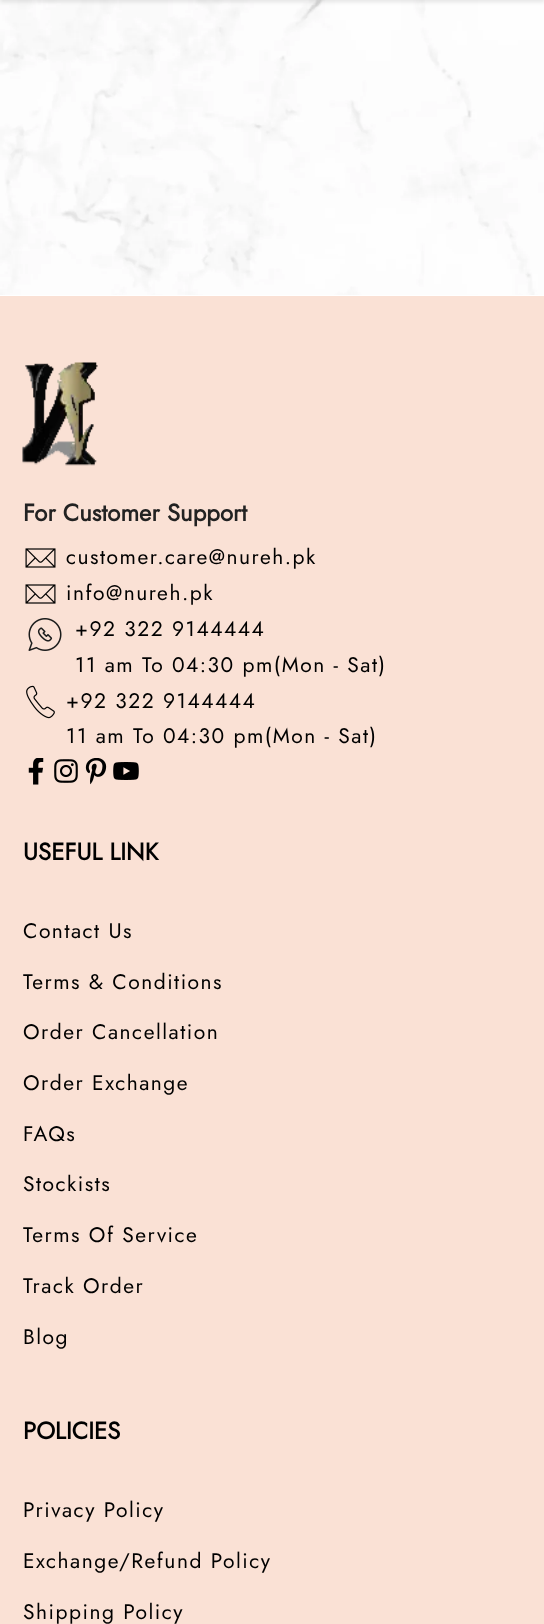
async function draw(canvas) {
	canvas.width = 544;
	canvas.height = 1624;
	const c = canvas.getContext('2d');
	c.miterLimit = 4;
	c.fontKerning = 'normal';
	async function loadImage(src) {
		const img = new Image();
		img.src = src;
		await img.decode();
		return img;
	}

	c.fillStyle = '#fff';
	c.fillRect(0, 0, 544, 1624);
	c.drawImage(await loadImage('img1.png'), 0, 0, 544, 295);
	c.fillStyle = '#0000001a';
	c.filter = 'blur(2px)';
	c.beginPath();
	c.rect(0, -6, 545, 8);
	c.fill();
	c.filter = 'none';
	c.fillStyle = '#fae1d5';
	c.fillRect(0, 296, 544, 1328);
	c.drawImage(await loadImage('img2.png'), 22, 362, 76, 104);
	c.font = 'bold 24px Jost';
	c.fillStyle = '#222';
	c.fillText('For Customer Support', 23, 521);
	c.drawImage(await loadImage('img3.png'), 25, 548, 31, 20);
	c.letterSpacing = '1.5px';
	c.font = '21px Jost';
	c.fillStyle = '#000';
	c.fillText('customer.care@nureh.pk', 66, 564);
	c.drawImage(await loadImage('img3.png'), 25, 584, 31, 20);
	c.fillText('info@nureh.pk', 66, 600);
	c.drawImage(await loadImage('img4.png'), 28, 618, 34, 33);
	c.fillText('+92 322 9144444', 75, 636);
	c.fillText('11 am To 04:30 pm(Mon - Sat)', 75, 672);
	c.drawImage(await loadImage('img5.png'), 26, 685, 29, 34);
	c.fillText('+92 322 9144444', 66, 708);
	c.fillText('11 am To 04:30 pm(Mon - Sat)', 66, 743);
	c.drawImage(await loadImage('img6.png'), 28, 758, 16, 27);
	c.drawImage(await loadImage('img7.png'), 54, 759, 24, 24);
	c.drawImage(await loadImage('img8.png'), 85, 758, 22, 27);
	c.drawImage(await loadImage('img9.png'), 113, 762, 26, 18);
	c.letterSpacing = '0px';
	c.font = 'bold 24px Jost';
	c.fillText('USEFUL LINK', 23, 860);
	c.letterSpacing = '1.5px';
	c.font = '21px Jost';
	for (const [text, x, y] of [
		['Contact Us', 23, 938],
		['Terms & Conditions', 23, 989],
		['Order Cancellation', 23, 1039],
		['Order Exchange', 23, 1090],
		['FAQs', 23, 1141],
		['Stockists', 23, 1191],
		['Terms Of Service', 23, 1242],
		['Track Order', 23, 1293],
		['Blog', 23, 1344],
	]) {
		c.fillText(text, x, y);
	}
	c.letterSpacing = '0px';
	c.font = 'bold 24px Jost';
	c.fillText('POLICIES', 23, 1439);
	c.letterSpacing = '1.5px';
	c.font = '21px Jost';
	for (const [text, x, y] of [
		['Privacy Policy', 23, 1517],
		['Exchange/Refund Policy', 23, 1568],
		['Shipping Policy', 23, 1619],
	]) {
		c.fillText(text, x, y);
	}
}

draw(document.querySelector('canvas'));
